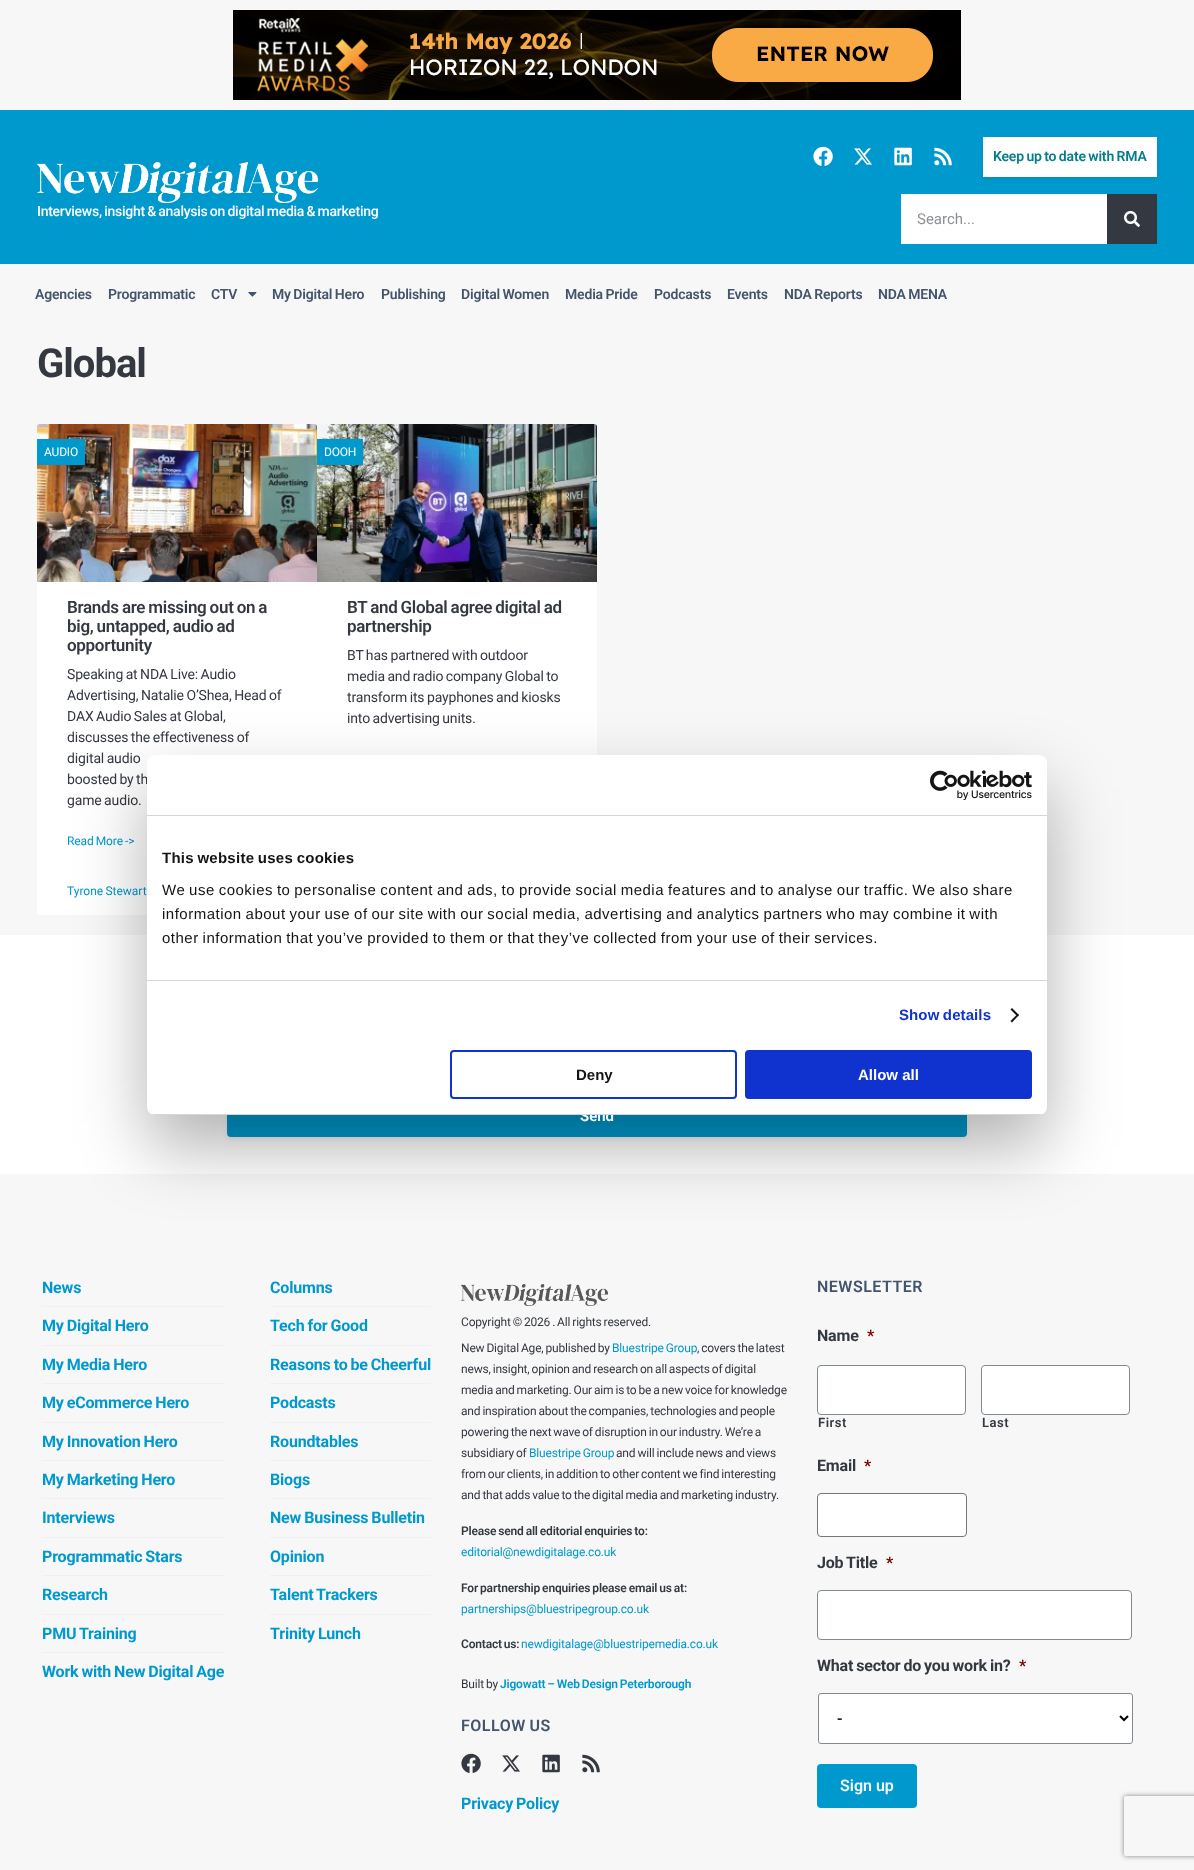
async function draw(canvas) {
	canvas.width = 1194;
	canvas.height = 1870;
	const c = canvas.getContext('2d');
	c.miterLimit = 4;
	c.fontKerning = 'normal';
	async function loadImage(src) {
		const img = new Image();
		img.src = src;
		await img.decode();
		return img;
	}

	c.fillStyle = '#f7f7f7';
	c.fillRect(0, 0, 1194, 1870);
	c.drawImage(await loadImage('img1.png'), 233, 10, 728, 90);
	c.fillStyle = '#0099cd';
	c.fillRect(0, 110, 1194, 154);
	c.drawImage(await loadImage('img2.png'), 37, 162, 281, 41);
	c.letterSpacing = '-0.27px';
	c.wordSpacing = '-0.8px';
	c.font = '500 14px Roboto';
	c.fillStyle = '#fff';
	c.fillText('Interviews, insight & analysis on digital media & marketing', 37, 216);
	c.drawImage(await loadImage('img3.png'), 813, 146, 20, 20);
	c.drawImage(await loadImage('img4.png'), 854, 148, 18, 17);
	c.drawImage(await loadImage('img5.png'), 894, 147, 18, 19);
	c.drawImage(await loadImage('img6.png'), 934, 147, 18, 19);
	c.fillStyle = '#0000000f';
	c.filter = 'blur(2px)';
	c.beginPath();
	c.rect(983, 139, 174, 40);
	c.fill();
	c.filter = 'none';
	c.fillStyle = '#fff';
	c.fillRect(983, 137, 174, 40);
	c.letterSpacing = '-0.18px';
	c.font = '600 14px Roboto';
	c.fillStyle = '#047e8b';
	c.fillText('Keep up to date with RMA', 993, 161);
	c.fillStyle = '#fff';
	c.fillRect(901, 194, 206, 50);
	c.letterSpacing = '0px';
	c.wordSpacing = '0px';
	c.font = '15px Roboto';
	c.fillStyle = '#8c8f93';
	c.fillText('Search...', 917, 224);
	c.fillStyle = '#343840';
	c.fillRect(1107, 194, 50, 50);
	c.drawImage(await loadImage('img7.png'), 1124, 211, 16, 16);
	c.letterSpacing = '-0.18px';
	c.font = '600 14px Roboto';
	c.fillStyle = '#44546a';
	for (const [text, x, y] of [
		['Agencies', 35, 299],
		['Programmatic', 108, 299],
		['CTV', 211, 299],
	]) {
		c.fillText(text, x, y);
	}
	c.drawImage(await loadImage('img8.png'), 248, 292, 9, 5);
	c.wordSpacing = '-0.8px';
	c.fillText('My Digital Hero', 272, 299);
	c.wordSpacing = '0px';
	c.fillText('Publishing', 381, 299);
	c.wordSpacing = '-0.8px';
	c.fillText('Digital Women', 461, 299);
	c.fillText('Media Pride', 565, 299);
	c.wordSpacing = '0px';
	c.fillText('Podcasts', 654, 299);
	c.fillText('Events', 727, 299);
	c.wordSpacing = '-0.8px';
	c.fillText('NDA Reports', 784, 299);
	c.fillText('NDA MENA', 878, 299);
	c.letterSpacing = '-1px';
	c.wordSpacing = '0px';
	c.font = 'bold 40px Roboto';
	c.fillStyle = '#343840';
	c.fillText('Global', 37, 377);
	c.fillStyle = '#fff';
	c.beginPath();
	c.roundRect(37, 424, 280, 491, 3);
	c.fill();
	c.drawImage(await loadImage('img9.png'), 37, 424, 280, 158);
	c.fillStyle = '#0099cd';
	c.fillRect(37, 439, 48, 26);
	c.letterSpacing = '-0.18px';
	c.font = '12px Roboto';
	c.fillStyle = '#fff';
	c.fillText('AUDIO', 44, 456);
	c.letterSpacing = '-0.3px';
	c.wordSpacing = '-0.8px';
	c.font = '600 17px Roboto';
	c.fillStyle = '#343840';
	c.fillText('Brands are missing out on a', 67, 613);
	c.fillText('big, untapped, audio ad', 67, 632);
	c.wordSpacing = '0px';
	c.fillText('opportunity', 67, 651);
	c.letterSpacing = '-0.15px';
	c.wordSpacing = '-0.8px';
	c.font = '14px Roboto';
	for (const [text, x, y] of [
		['Speaking at NDA Live: Audio', 67, 679],
		['Advertising, Natalie O’Shea, Head of', 67, 700],
		['DAX Audio Sales at Global,', 67, 721],
		['discusses the effectiveness of', 67, 742],
		['digital audio', 67, 763],
		['boosted by th', 67, 784],
		['game audio.', 67, 805],
	]) {
		c.fillText(text, x, y);
	}
	c.letterSpacing = '-0.1px';
	c.font = '12px Roboto';
	c.fillStyle = '#0099cd';
	c.fillText('Read More', 67, 845);
	c.wordSpacing = '0px';
	c.fillText('->', 125, 845);
	c.letterSpacing = '0px';
	c.wordSpacing = '-0.8px';
	c.fillText('Tyrone Stewart', 67, 895);
	c.fillStyle = '#fff';
	c.beginPath();
	c.roundRect(317, 424, 280, 491, 3);
	c.fill();
	c.drawImage(await loadImage('img10.png'), 317, 424, 280, 158);
	c.fillStyle = '#0099cd';
	c.fillRect(317, 439, 46, 26);
	c.letterSpacing = '-0.18px';
	c.wordSpacing = '0px';
	c.fillStyle = '#fff';
	c.fillText('DOOH', 324, 456);
	c.letterSpacing = '-0.3px';
	c.wordSpacing = '-0.8px';
	c.font = '600 17px Roboto';
	c.fillStyle = '#343840';
	c.fillText('BT and Global agree digital ad', 347, 613);
	c.wordSpacing = '0px';
	c.fillText('partnership', 347, 632);
	c.letterSpacing = '-0.15px';
	c.wordSpacing = '-0.8px';
	c.font = '14px Roboto';
	for (const [text, x, y] of [
		['BT has partnered with outdoor', 347, 660],
		['media and radio company Global to', 347, 681],
		['transform its payphones and kiosks', 347, 702],
		['into advertising units.', 347, 723],
	]) {
		c.fillText(text, x, y);
	}
	c.fillStyle = '#fff';
	c.fillRect(0, 935, 1194, 239);
	c.fillStyle = '#0000000f';
	c.filter = 'blur(2px)';
	c.beginPath();
	c.roundRect(227, 1099, 740, 40, 4);
	c.fill();
	c.filter = 'none';
	c.fillStyle = '#0099cd';
	c.beginPath();
	c.roundRect(227, 1097, 740, 40, 4);
	c.fill();
	c.fillStyle = '#0000004d';
	c.filter = 'blur(34px)';
	c.beginPath();
	c.roundRect(147, 787, 900, 360, 8);
	c.fill();
	c.filter = 'none';
	c.fillStyle = '#fff';
	c.beginPath();
	c.roundRect(147, 755, 900, 360, 8);
	c.fill();
	c.fillStyle = '#d6d6d6';
	c.fillRect(147, 815, 900, 1);
	c.drawImage(await loadImage('img11.png'), 930, 770, 102, 30);
	c.fillRect(147, 980, 900, 1);
	c.letterSpacing = '0.25px';
	c.font = 'bold 15px Liberation Sans';
	c.fillStyle = '#141414';
	c.fillText('This website uses cookies', 162, 863);
	c.letterSpacing = '0.5px';
	c.font = '15px Liberation Sans';
	for (const [text, x, y] of [
		['We use cookies to personalise content and ads, to provide social media features and to analyse our traffic. We also share', 162, 895],
		['information about your use of our site with our social media, advertising and analytics partners who may combine it with', 162, 919],
		['other information that you’ve provided to them or that they’ve collected from your use of their services.', 162, 943],
	]) {
		c.fillText(text, x, y);
	}
	c.letterSpacing = '0.1px';
	c.font = 'bold 15px Liberation Sans';
	c.fillStyle = '#1032cf';
	c.fillText('Show details', 899, 1020);
	c.fillStyle = '#141414';
	c.beginPath();
	c.moveTo(1012, 1008);
	c.lineTo(1019, 1015);
	c.lineTo(1017.5, 1016.5);
	c.lineTo(1010.5, 1009.5);
	c.closePath();
	c.fill();
	c.beginPath();
	c.moveTo(1017.5, 1014);
	c.lineTo(1019, 1015);
	c.lineTo(1012, 1022.5);
	c.lineTo(1010.5, 1021);
	c.closePath();
	c.fill();
	c.letterSpacing = '0px';
	c.wordSpacing = '0px';
	c.font = '600 15px Roboto';
	c.fillStyle = '#fff';
	c.fillText('Send', 580, 1121);
	c.save();
	c.beginPath();
	c.roundRect(147, 755, 900, 360, 8);
	c.clip();
	c.fillStyle = '#d6d6d6';
	c.fillRect(147, 1114, 900, 1);
	c.restore();
	c.beginPath();
	c.roundRect(451, 1051, 285, 47, 3);
	c.strokeStyle = '#1032cf';
	c.lineWidth = 2;
	c.stroke();
	c.font = 'bold 15px Liberation Sans';
	c.fillStyle = '#141414';
	c.fillText('Deny', 576, 1080);
	c.fillStyle = '#1032cf';
	c.beginPath();
	c.roundRect(746, 1051, 285, 47, 3);
	c.fill();
	c.stroke();
	c.fillStyle = '#fff';
	c.fillText('Allow all', 858, 1080);
	c.letterSpacing = '-0.18px';
	c.font = 'bold 16px Roboto';
	c.fillStyle = '#0099cd';
	c.fillText('News', 42, 1293);
	c.fillStyle = '#f0f0f0';
	c.fillRect(42, 1306, 182, 1);
	c.wordSpacing = '-0.8px';
	c.fillStyle = '#0099cd';
	c.fillText('My Digital Hero', 42, 1331);
	c.fillStyle = '#f0f0f0';
	c.fillRect(42, 1345, 182, 1);
	c.fillStyle = '#0099cd';
	c.fillText('My Media Hero', 42, 1370);
	c.fillStyle = '#f0f0f0';
	c.fillRect(42, 1383, 182, 1);
	c.fillStyle = '#0099cd';
	c.fillText('My eCommerce Hero', 42, 1408);
	c.fillStyle = '#f0f0f0';
	c.fillRect(42, 1422, 182, 1);
	c.fillStyle = '#0099cd';
	c.fillText('My Innovation Hero', 42, 1447);
	c.fillStyle = '#f0f0f0';
	c.fillRect(42, 1460, 182, 1);
	c.fillStyle = '#0099cd';
	c.fillText('My Marketing Hero', 42, 1485);
	c.fillStyle = '#f0f0f0';
	c.fillRect(42, 1498, 182, 1);
	c.wordSpacing = '0px';
	c.fillStyle = '#0099cd';
	c.fillText('Interviews', 42, 1523);
	c.fillStyle = '#f0f0f0';
	c.fillRect(42, 1537, 182, 1);
	c.wordSpacing = '-0.8px';
	c.fillStyle = '#0099cd';
	c.fillText('Programmatic Stars', 42, 1562);
	c.fillStyle = '#f0f0f0';
	c.fillRect(42, 1575, 182, 1);
	c.wordSpacing = '0px';
	c.fillStyle = '#0099cd';
	c.fillText('Research', 42, 1600);
	c.fillStyle = '#f0f0f0';
	c.fillRect(42, 1614, 182, 1);
	c.wordSpacing = '-0.8px';
	c.fillStyle = '#0099cd';
	c.fillText('PMU Training', 42, 1639);
	c.fillStyle = '#f0f0f0';
	c.fillRect(42, 1652, 182, 1);
	c.fillStyle = '#0099cd';
	c.fillText('Work with New Digital Age', 42, 1677);
	c.wordSpacing = '0px';
	c.fillText('Columns', 270, 1293);
	c.fillStyle = '#f0f0f0';
	c.fillRect(270, 1306, 161, 1);
	c.wordSpacing = '-0.8px';
	c.fillStyle = '#0099cd';
	c.fillText('Tech for Good', 270, 1331);
	c.fillStyle = '#f0f0f0';
	c.fillRect(270, 1345, 161, 1);
	c.fillStyle = '#0099cd';
	c.fillText('Reasons to be Cheerful', 270, 1370);
	c.fillStyle = '#f0f0f0';
	c.fillRect(270, 1383, 161, 1);
	c.wordSpacing = '0px';
	c.fillStyle = '#0099cd';
	c.fillText('Podcasts', 270, 1408);
	c.fillStyle = '#f0f0f0';
	c.fillRect(270, 1422, 161, 1);
	c.fillStyle = '#0099cd';
	c.fillText('Roundtables', 270, 1447);
	c.fillStyle = '#f0f0f0';
	c.fillRect(270, 1460, 161, 1);
	c.fillStyle = '#0099cd';
	c.fillText('Biogs', 270, 1485);
	c.fillStyle = '#f0f0f0';
	c.fillRect(270, 1498, 161, 1);
	c.wordSpacing = '-0.8px';
	c.fillStyle = '#0099cd';
	c.fillText('New Business Bulletin', 270, 1523);
	c.fillStyle = '#f0f0f0';
	c.fillRect(270, 1537, 161, 1);
	c.wordSpacing = '0px';
	c.fillStyle = '#0099cd';
	c.fillText('Opinion', 270, 1562);
	c.fillStyle = '#f0f0f0';
	c.fillRect(270, 1575, 161, 1);
	c.wordSpacing = '-0.8px';
	c.fillStyle = '#0099cd';
	c.fillText('Talent Trackers', 270, 1600);
	c.fillStyle = '#f0f0f0';
	c.fillRect(270, 1614, 161, 1);
	c.fillStyle = '#0099cd';
	c.fillText('Trinity Lunch', 270, 1639);
	c.drawImage(await loadImage('img12.png'), 461, 1284, 147, 22);
	c.font = '12px Roboto';
	c.fillStyle = '#343840';
	c.fillText('Copyright © 2026 . All rights reserved.', 461, 1326);
	c.fillText('New Digital Age, published by', 461, 1352);
	c.fillStyle = '#0099cd';
	c.fillText('Bluestripe Group', 612, 1352);
	c.fillStyle = '#343840';
	for (const [text, x, y] of [
		[', covers the latest', 697, 1352],
		['news, insight, opinion and research on all aspects of digital', 461, 1373],
		['media and marketing. Our aim is to be a new voice for knowledge', 461, 1394],
		['and inspiration about the companies, technologies and people', 461, 1415],
		['powering the next wave of disruption in our industry. We’re a', 461, 1436],
		['subsidiary of', 461, 1457],
	]) {
		c.fillText(text, x, y);
	}
	c.fillStyle = '#0099cd';
	c.fillText('Bluestripe Group', 529, 1457);
	c.fillStyle = '#343840';
	for (const [text, x, y] of [
		['and will include news and views', 616, 1457],
		['from our clients, in addition to other content we find interesting', 461, 1478],
		['and that adds value to the digital media and marketing industry.', 461, 1499],
	]) {
		c.fillText(text, x, y);
	}
	c.font = '600 12px Roboto';
	c.fillText('Please send all editorial enquiries to:', 461, 1535);
	c.wordSpacing = '0px';
	c.font = '12px Roboto';
	c.fillStyle = '#0099cd';
	c.fillText('editorial@newdigitalage.co.uk', 461, 1556);
	c.wordSpacing = '-0.8px';
	c.font = '600 12px Roboto';
	c.fillStyle = '#343840';
	c.fillText('For partnership enquiries please email us at:', 461, 1592);
	c.wordSpacing = '0px';
	c.font = '12px Roboto';
	c.fillStyle = '#0099cd';
	c.fillText('partnerships@bluestripegroup.co.uk', 461, 1613);
	c.wordSpacing = '-0.8px';
	c.font = '600 12px Roboto';
	c.fillStyle = '#343840';
	c.fillText('Contact us:', 461, 1648);
	c.wordSpacing = '0px';
	c.font = '12px Roboto';
	c.fillStyle = '#0099cd';
	c.fillText('newdigitalage@bluestripemedia.co.uk', 521, 1648);
	c.wordSpacing = '-0.8px';
	c.fillStyle = '#343840';
	c.fillText('Built by', 461, 1688);
	c.font = '600 12px Roboto';
	c.fillStyle = '#0099cd';
	c.fillText('Jigowatt – Web Design Peterborough', 500, 1688);
	c.letterSpacing = '0.5px';
	c.font = '600 16px Roboto';
	c.fillStyle = '#44546a';
	c.fillText('FOLLOW US', 461, 1731);
	c.drawImage(await loadImage('img13.png'), 461, 1753, 20, 20);
	c.drawImage(await loadImage('img14.png'), 502, 1755, 18, 17);
	c.drawImage(await loadImage('img15.png'), 542, 1754, 18, 19);
	c.drawImage(await loadImage('img16.png'), 582, 1754, 18, 19);
	c.letterSpacing = '-0.18px';
	c.font = 'bold 16px Roboto';
	c.fillStyle = '#0099cd';
	c.fillText('Privacy Policy', 461, 1809);
	c.letterSpacing = '0.5px';
	c.wordSpacing = '0px';
	c.font = '600 16px Roboto';
	c.fillStyle = '#44546a';
	c.fillText('NEWSLETTER', 817, 1292);
	c.letterSpacing = '-0.18px';
	c.font = 'bold 16px Roboto';
	c.fillStyle = '#343840';
	c.fillText('Name', 817, 1341);
	c.fillStyle = '#790000';
	c.fillText('*', 867, 1341);
	c.fillStyle = '#fff';
	c.beginPath();
	c.roundRect(817.5, 1365.5, 148, 49, 3.5);
	c.fill();
	c.strokeStyle = '#818a91';
	c.lineWidth = 1;
	c.stroke();
	c.letterSpacing = '0.5px';
	c.font = '600 13px Roboto';
	c.fillStyle = '#343840';
	c.fillText('First', 818, 1427);
	c.fillStyle = '#fff';
	c.beginPath();
	c.roundRect(981.5, 1365.5, 148, 49, 3.5);
	c.fill();
	c.stroke();
	c.fillStyle = '#343840';
	c.fillText('Last', 982, 1427);
	c.letterSpacing = '-0.18px';
	c.font = 'bold 16px Roboto';
	c.fillText('Email', 817, 1471);
	c.fillStyle = '#790000';
	c.fillText('*', 864, 1471);
	c.fillStyle = '#fff';
	c.beginPath();
	c.roundRect(817.5, 1493.5, 149, 43, 3.5);
	c.fill();
	c.strokeStyle = '#767676';
	c.stroke();
	c.wordSpacing = '-0.8px';
	c.fillStyle = '#343840';
	c.fillText('Job Title', 817, 1568);
	c.wordSpacing = '0px';
	c.fillStyle = '#790000';
	c.fillText('*', 886, 1568);
	c.fillStyle = '#fff';
	c.beginPath();
	c.roundRect(817.5, 1590.5, 314, 49, 3.5);
	c.fill();
	c.strokeStyle = '#818a91';
	c.stroke();
	c.wordSpacing = '-0.8px';
	c.fillStyle = '#343840';
	c.fillText('What sector do you work in?', 817, 1671);
	c.wordSpacing = '0px';
	c.fillStyle = '#790000';
	c.fillText('*', 1019, 1671);
	c.fillStyle = '#fff';
	c.beginPath();
	c.roundRect(818.5, 1693.5, 314, 50, 2.5);
	c.fill();
	c.stroke();
	c.beginPath();
	c.moveTo(1120, 1716);
	c.lineTo(1124, 1720);
	c.lineTo(1128, 1716);
	c.strokeStyle = '#000';
	c.lineWidth = 2;
	c.stroke();
	c.letterSpacing = '0px';
	c.font = '500 16px Roboto';
	c.fillStyle = '#000';
	c.fillText('-', 837, 1724);
	c.fillStyle = '#0099cd';
	c.beginPath();
	c.roundRect(817, 1764, 100, 44, 4);
	c.fill();
	c.font = '600 16px Roboto';
	c.fillStyle = '#f2f7ff';
	c.fillText('Sign up', 840, 1791);
	c.save();
	c.beginPath();
	c.moveTo(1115, 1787);
	c.lineTo(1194, 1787);
	c.lineTo(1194, 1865);
	c.lineTo(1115, 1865);
	c.closePath();
	c.moveTo(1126, 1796);
	c.lineTo(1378, 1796);
	c.bezierCurveTo(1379, 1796, 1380, 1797, 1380, 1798);
	c.lineTo(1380, 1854);
	c.bezierCurveTo(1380, 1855, 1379, 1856, 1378, 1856);
	c.lineTo(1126, 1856);
	c.bezierCurveTo(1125, 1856, 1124, 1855, 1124, 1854);
	c.lineTo(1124, 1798);
	c.bezierCurveTo(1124, 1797, 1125, 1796, 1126, 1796);
	c.closePath();
	c.clip('evenodd');
	c.fillStyle = '#808080';
	c.filter = 'blur(2.5px)';
	c.beginPath();
	c.roundRect(1124, 1796, 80, 60, 2);
	c.fill();
	c.filter = 'none';
	c.restore();
}

draw(document.querySelector('canvas'));
